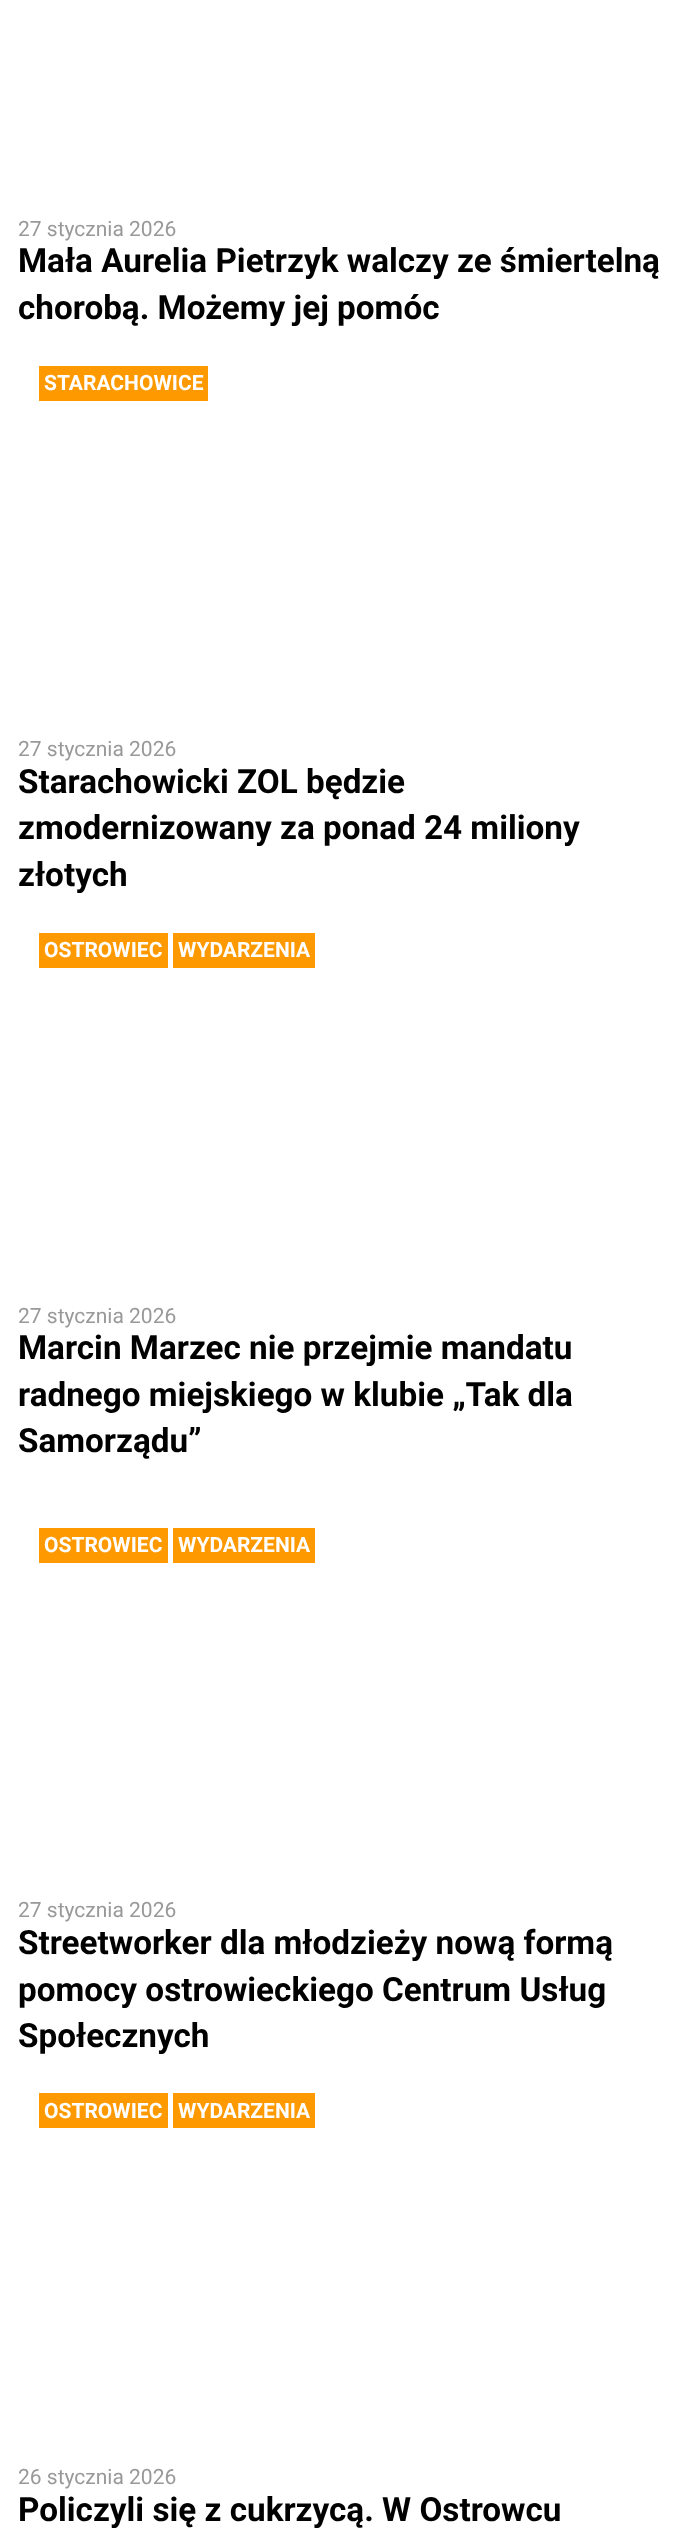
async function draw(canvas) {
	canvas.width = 680;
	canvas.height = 2540;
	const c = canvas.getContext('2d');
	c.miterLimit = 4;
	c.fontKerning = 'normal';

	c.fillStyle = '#fff';
	c.fillRect(0, 0, 680, 2540);
	c.font = '21px Roboto';
	c.fillStyle = '#999';
	c.fillText('27 stycznia 2026', 18, 236);
	c.font = 'bold 33.25px Roboto';
	c.fillStyle = '#000';
	c.fillText('Mała Aurelia Pietrzyk walczy ze śmiertelną', 18, 272);
	c.fillText('chorobą. Możemy jej pomóc', 18, 319);
	c.fillStyle = '#f90';
	c.fillRect(39, 366, 169, 35);
	c.font = 'bold 21px Roboto';
	c.fillStyle = '#fff';
	c.fillText('STARACHOWICE', 44, 390);
	c.font = '21px Roboto';
	c.fillStyle = '#999';
	c.fillText('27 stycznia 2026', 18, 756);
	c.font = 'bold 33.25px Roboto';
	c.fillStyle = '#000';
	for (const [text, x, y] of [
		['Starachowicki ZOL będzie', 18, 793],
		['zmodernizowany za ponad 24 miliony', 18, 839],
		['złotych', 18, 886],
	]) {
		c.fillText(text, x, y);
	}
	c.fillStyle = '#f90';
	c.fillRect(39, 933, 129, 35);
	c.font = 'bold 21px Roboto';
	c.fillStyle = '#fff';
	c.fillText('OSTROWIEC', 44, 957);
	c.fillStyle = '#f90';
	c.fillRect(173, 933, 142, 35);
	c.fillStyle = '#fff';
	c.fillText('WYDARZENIA', 178, 957);
	c.font = '21px Roboto';
	c.fillStyle = '#999';
	c.fillText('27 stycznia 2026', 18, 1323);
	c.font = 'bold 33.25px Roboto';
	c.fillStyle = '#000';
	for (const [text, x, y] of [
		['Marcin Marzec nie przejmie mandatu', 18, 1359],
		['radnego miejskiego w klubie „Tak dla', 18, 1406],
		['Samorządu”', 18, 1452],
	]) {
		c.fillText(text, x, y);
	}
	c.fillStyle = '#f90';
	c.fillRect(39, 1528, 129, 35);
	c.font = 'bold 21px Roboto';
	c.fillStyle = '#fff';
	c.fillText('OSTROWIEC', 44, 1552);
	c.fillStyle = '#f90';
	c.fillRect(173, 1528, 142, 35);
	c.fillStyle = '#fff';
	c.fillText('WYDARZENIA', 178, 1552);
	c.font = '21px Roboto';
	c.fillStyle = '#999';
	c.fillText('27 stycznia 2026', 18, 1917);
	c.font = 'bold 33.25px Roboto';
	c.fillStyle = '#000';
	for (const [text, x, y] of [
		['Streetworker dla młodzieży nową formą', 18, 1954],
		['pomocy ostrowieckiego Centrum Usług', 18, 2001],
		['Społecznych', 18, 2047],
	]) {
		c.fillText(text, x, y);
	}
	c.fillStyle = '#f90';
	c.fillRect(39, 2093, 129, 35);
	c.font = 'bold 21px Roboto';
	c.fillStyle = '#fff';
	c.fillText('OSTROWIEC', 44, 2118);
	c.fillStyle = '#f90';
	c.fillRect(173, 2093, 142, 35);
	c.fillStyle = '#fff';
	c.fillText('WYDARZENIA', 178, 2118);
	c.font = '21px Roboto';
	c.fillStyle = '#999';
	c.fillText('26 stycznia 2026', 18, 2484);
	c.font = 'bold 33.25px Roboto';
	c.fillStyle = '#000';
	c.fillText('Policzyli się z cukrzycą. W Ostrowcu', 18, 2521);
}

draw(document.querySelector('canvas'));
